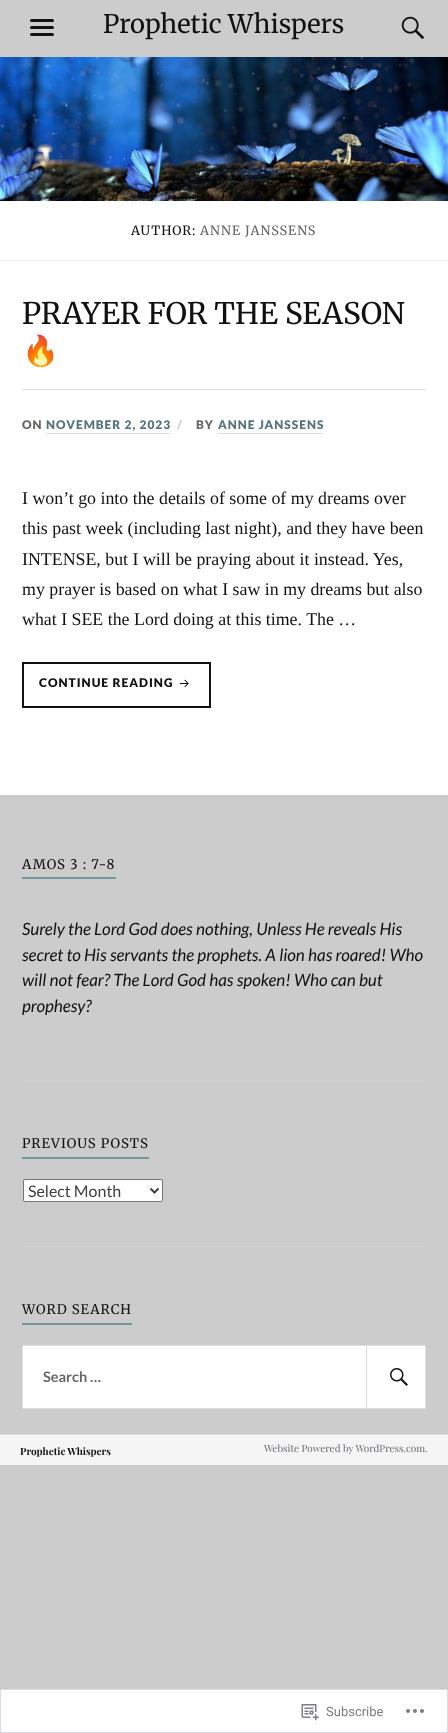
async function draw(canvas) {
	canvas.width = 448;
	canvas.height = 1733;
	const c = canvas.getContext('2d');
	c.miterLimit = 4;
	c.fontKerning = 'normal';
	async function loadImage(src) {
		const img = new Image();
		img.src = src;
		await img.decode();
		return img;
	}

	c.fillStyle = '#ccc';
	c.fillRect(0, 0, 448, 1733);
	c.font = '300 25.5px Merriweather';
	c.fillStyle = '#111';
	c.fillText('Prophetic Whispers', 103, 33);
	c.beginPath();
	c.roundRect(30, 19, 24, 3, 1.5);
	c.fill();
	c.beginPath();
	c.roundRect(30, 26, 24, 3, 1.5);
	c.fill();
	c.beginPath();
	c.roundRect(30, 33, 24, 3, 1.5);
	c.fill();
	c.drawImage(await loadImage('img1.png'), 401, 16, 24, 24);
	c.drawImage(await loadImage('img2.png'), 0, 57, 448, 144);
	c.fillStyle = '#fff';
	c.fillRect(0, 201, 448, 59);
	c.fillStyle = '#eee';
	c.fillRect(0, 260, 448, 1);
	c.letterSpacing = '1px';
	c.font = '300 12.75px Merriweather';
	c.fillStyle = '#111';
	c.fillText('AUTHOR:', 131, 235);
	c.fillStyle = '#666';
	c.fillText('ANNE JANSSENS', 200, 235);
	c.fillStyle = '#fff';
	c.fillRect(0, 261, 448, 534);
	c.letterSpacing = '0px';
	c.font = '300 29.75px Merriweather';
	c.fillStyle = '#111';
	c.fillText('PRAYER FOR THE SEASON', 22, 324);
	c.font = '29.75px Noto Color Emoji';
	c.fillText('🔥', 22, 361);
	c.fillStyle = '#ddd';
	c.fillRect(22, 389, 404, 1);
	c.letterSpacing = '1px';
	c.font = '900 11.9px Lato';
	c.fillStyle = '#666';
	c.fillText('ON', 22, 429);
	c.fillStyle = '#55747b';
	c.fillText('NOVEMBER 2, 2023', 46, 429);
	c.fillStyle = '#ddd';
	c.fillRect(46, 433, 125, 1);
	c.fillStyle = '#ccc';
	c.fillText('/', 177, 429);
	c.fillStyle = '#666';
	c.fillText('BY', 196, 429);
	c.fillStyle = '#55747b';
	c.fillText('ANNE JANSSENS', 218, 429);
	c.fillStyle = '#ddd';
	c.fillRect(218, 433, 106, 1);
	c.letterSpacing = '0px';
	c.font = '17.85px Liberation Serif';
	c.fillStyle = '#111';
	for (const [text, x, y] of [
		['I won’t go into the details of some of my dreams over', 22, 504],
		['this past week (including last night), and they have been', 22, 534],
		['INTENSE, but I will be praying about it instead. Yes,', 22, 565],
		['my prayer is based on what I saw in my dreams but also', 22, 595],
		['what I SEE the Lord doing at this time. The …', 22, 625],
	]) {
		c.fillText(text, x, y);
	}
	c.strokeStyle = '#111';
	c.lineWidth = 2;
	c.strokeRect(23, 663, 187, 44);
	c.letterSpacing = '1px';
	c.font = '900 12px Lato';
	c.fillText('CONTINUE READING', 39, 687);
	c.drawImage(await loadImage('img3.png'), 180, 679, 9, 9);
	c.fillStyle = '#72969d';
	c.fillRect(22, 877, 94, 2);
	c.font = '300 13.25px Merriweather';
	c.fillStyle = '#111';
	c.fillText('AMOS 3 : 7-8', 22, 869);
	c.letterSpacing = '0px';
	c.font = 'italic 17px Lato';
	for (const [text, x, y] of [
		['Surely the Lord God does nothing, Unless He reveals His', 22, 935],
		['secret to His servants the prophets. A lion has roared! Who', 22, 961],
		['will not fear? The Lord God has spoken! Who can but', 22, 986],
		['prophesy?', 22, 1012],
	]) {
		c.fillText(text, x, y);
	}
	c.fillStyle = '#d1d1d1';
	c.fillRect(22, 1080, 404, 1);
	c.fillStyle = '#72969d';
	c.fillRect(22, 1157, 127, 2);
	c.letterSpacing = '1px';
	c.font = '300 13.25px Merriweather';
	c.fillStyle = '#111';
	c.fillText('PREVIOUS POSTS', 22, 1148);
	c.fillStyle = '#fff';
	c.beginPath();
	c.roundRect(23.5, 1179.5, 139, 22, 1.5);
	c.fill();
	c.strokeStyle = '#767676';
	c.lineWidth = 1;
	c.stroke();
	c.beginPath();
	c.moveTo(150.5, 1188.5);
	c.lineTo(154.5, 1192.5);
	c.lineTo(158.5, 1188.5);
	c.strokeStyle = '#404040';
	c.lineWidth = 2;
	c.stroke();
	c.letterSpacing = '0px';
	c.font = '16px Lato';
	c.fillStyle = '#404040';
	c.fillText('Select Month', 28, 1197);
	c.fillStyle = '#d1d1d1';
	c.fillRect(22, 1246, 404, 1);
	c.fillStyle = '#72969d';
	c.fillRect(22, 1323, 110, 2);
	c.letterSpacing = '1px';
	c.font = '300 13.25px Merriweather';
	c.fillStyle = '#111';
	c.fillText('WORD SEARCH', 22, 1314);
	c.fillStyle = '#fff';
	c.beginPath();
	c.rect(22.5, 1345.5, 403, 63);
	c.fill();
	c.strokeStyle = '#ddd';
	c.lineWidth = 1;
	c.stroke();
	c.letterSpacing = '0px';
	c.font = 'bold 14.5px Lato';
	c.fillStyle = '#666';
	c.fillText('Search …', 43, 1382);
	c.strokeRect(366.5, 1345.5, 59, 63);
	c.drawImage(await loadImage('img4.png'), 390, 1368, 18, 18);
	c.fillStyle = '#f5f5f5';
	c.fillRect(0, 1435, 448, 30);
	c.fillStyle = '#ddd';
	c.fillRect(0, 1434, 448, 1);
	c.font = 'bold 10px Playfair Display';
	c.fillStyle = '#111';
	c.fillText('Prophetic Whispers', 20, 1455);
	c.font = '10px Playfair Display';
	c.fillStyle = '#646970';
	c.fillText('Website Powered by WordPress.com', 264, 1452);
	c.fillStyle = '#888';
	c.fillText('.', 425, 1452);
	c.fillStyle = '#fefefe';
	c.beginPath();
	c.rect(0.5, 1689.5, 447, 43);
	c.fill();
	c.strokeStyle = '#dcdcde';
	c.stroke();
	c.drawImage(await loadImage('img5.png'), 301, 1704, 18, 17);
	c.font = '13px Roboto';
	c.fillStyle = '#7a7e83';
	c.fillText('Subscribe', 326, 1716);
	c.drawImage(await loadImage('img6.png'), 406, 1709, 18, 4);
}

draw(document.querySelector('canvas'));
